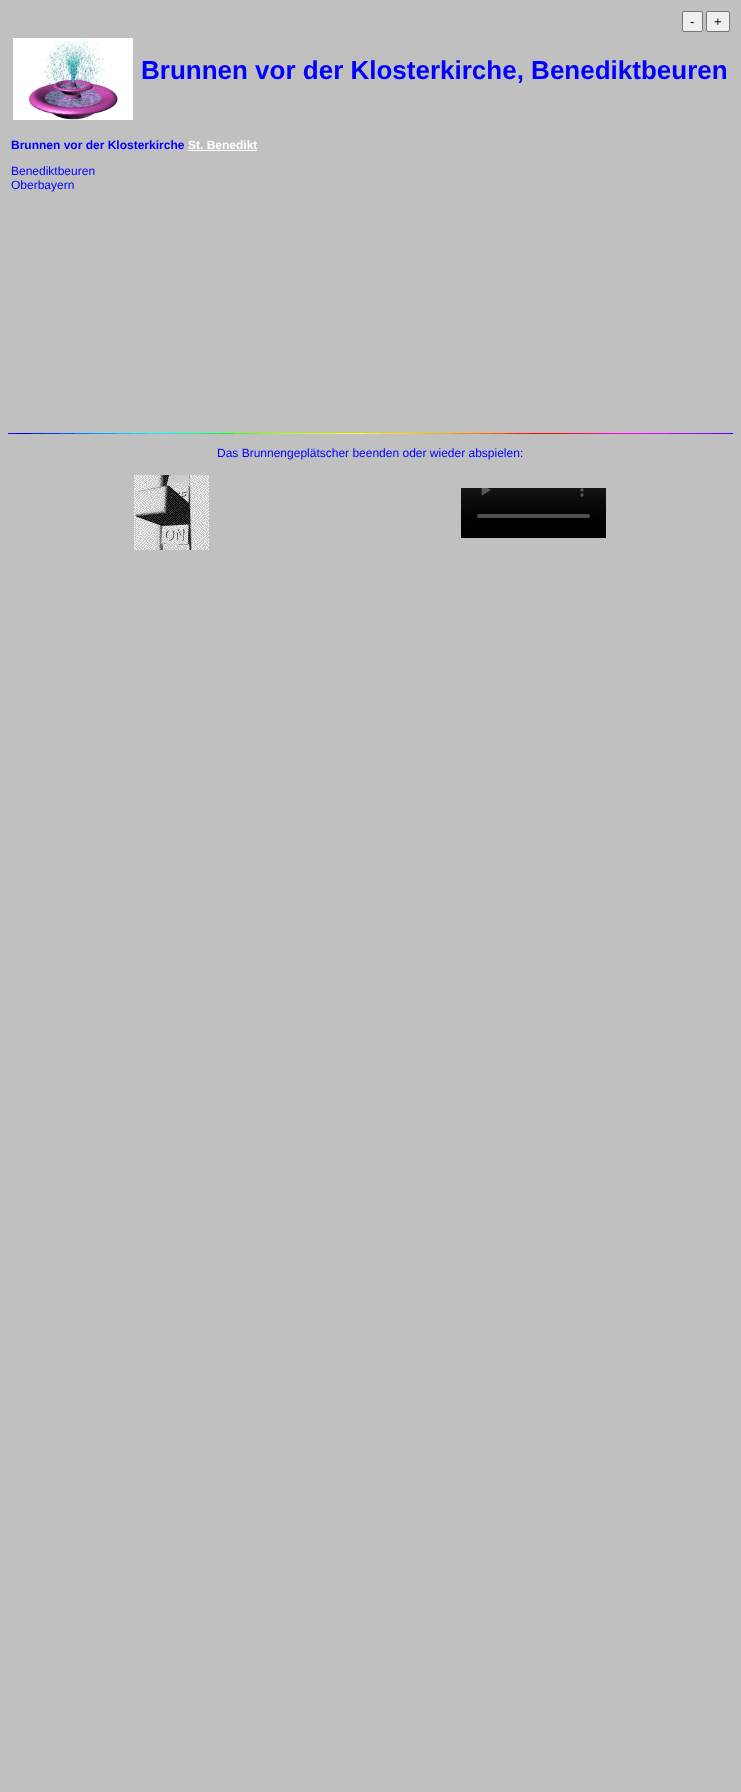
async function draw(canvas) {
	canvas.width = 741;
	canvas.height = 1792;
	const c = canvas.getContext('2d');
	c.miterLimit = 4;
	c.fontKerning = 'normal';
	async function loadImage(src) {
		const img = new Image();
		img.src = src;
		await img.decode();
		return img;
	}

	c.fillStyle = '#c0c0c0';
	c.fillRect(0, 0, 741, 1792);
	c.fillStyle = '#efefef';
	c.beginPath();
	c.roundRect(682.5, 11.5, 20, 20, 1.5);
	c.fill();
	c.strokeStyle = '#767676';
	c.stroke();
	c.font = '13px Liberation Sans';
	c.fillStyle = '#000';
	c.fillText('-', 690, 26);
	c.fillStyle = '#efefef';
	c.beginPath();
	c.roundRect(706.5, 11.5, 23, 20, 1.5);
	c.fill();
	c.stroke();
	c.fillStyle = '#000';
	c.fillText('+', 714, 26);
	c.drawImage(await loadImage('img1.png'), 13, 38, 120, 82);
	c.font = 'bold 26px Liberation Sans';
	c.fillStyle = '#00f';
	c.fillText('Brunnen vor der Klosterkirche, Benediktbeuren', 141, 79);
	c.font = 'bold 12px Liberation Sans';
	c.fillText('Brunnen vor der Klosterkirche', 11, 149);
	c.fillStyle = '#fff';
	c.fillText('St. Benedikt', 188, 149);
	c.fillRect(188, 150, 69, 1);
	c.font = '12px Liberation Sans';
	c.fillStyle = '#00f';
	c.fillText('Benediktbeuren', 11, 175);
	c.fillText('Oberbayern', 11, 189);
	c.drawImage(await loadImage('img2.png'), 8, 433, 725, 1);
	c.fillText('Das Brunnengeplätscher beenden oder wieder abspielen:', 217, 457);
	c.drawImage(await loadImage('img3.png'), 134, 475, 75, 75);
	c.drawImage(await loadImage('img4.png'), 461, 488, 145, 50);
}

draw(document.querySelector('canvas'));
